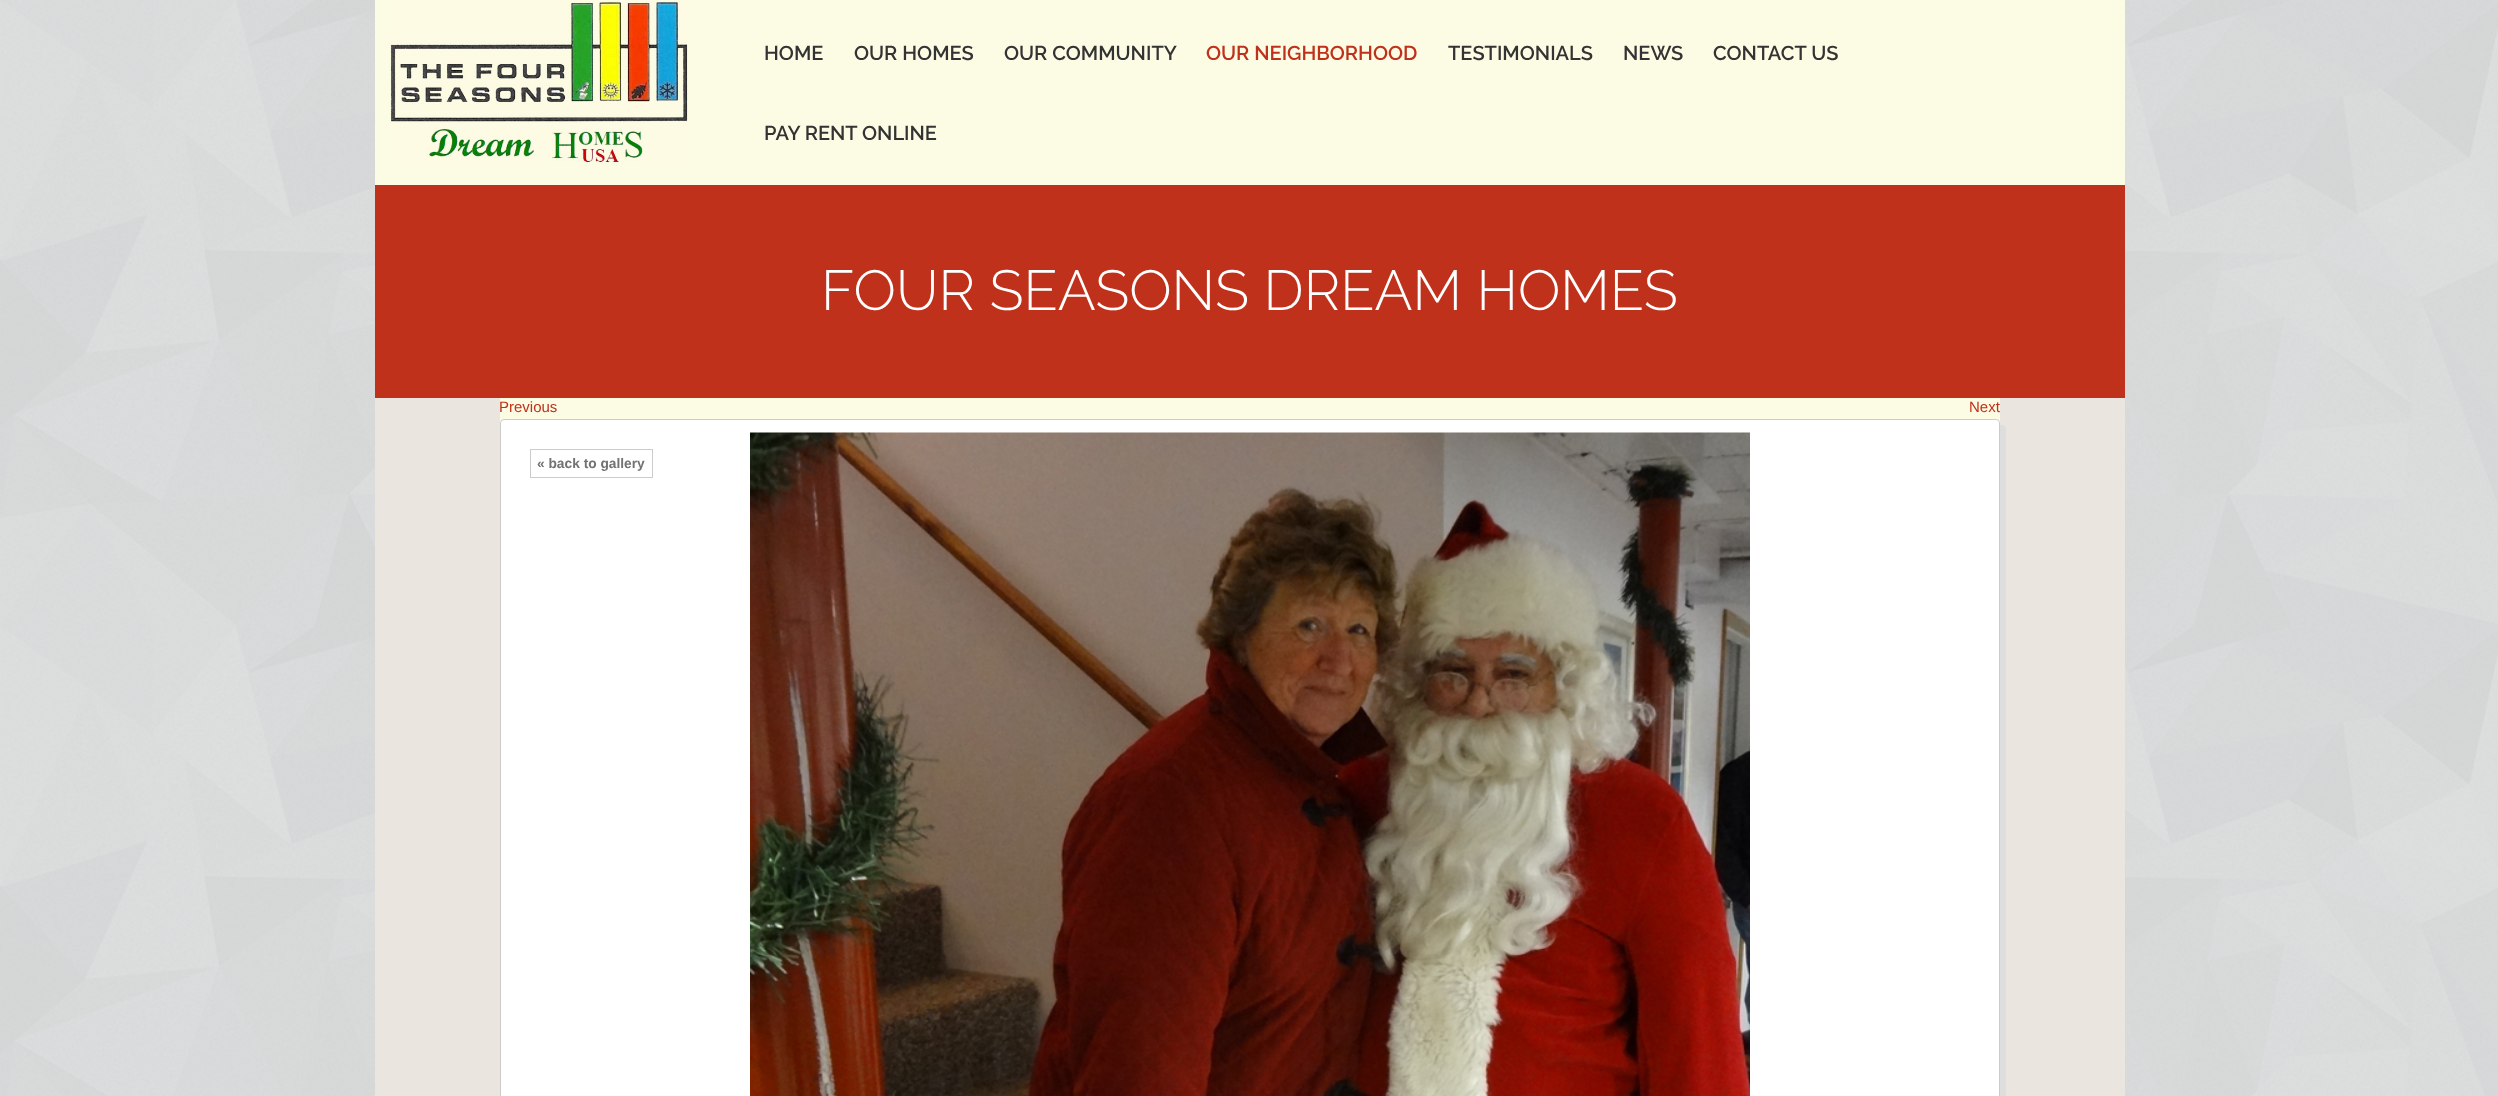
async function draw(canvas) {
	canvas.width = 2498;
	canvas.height = 1096;
	const c = canvas.getContext('2d');
	c.miterLimit = 4;
	c.fontKerning = 'normal';
	async function loadImage(src) {
		const img = new Image();
		img.src = src;
		await img.decode();
		return img;
	}

	c.fillStyle = '#fff';
	c.fillRect(0, 0, 2498, 1096);
	c.drawImage(await loadImage('img1.png'), 0, 0, 2498, 1096);
	c.fillStyle = '#eae5df';
	c.fillRect(375, 398, 1750, 698);
	c.fillStyle = '#fcfbe3';
	c.fillRect(375, 0, 1750, 185);
	c.drawImage(await loadImage('img2.png'), 390, 2, 298, 162);
	c.font = '600 20px Raleway';
	c.fillStyle = '#333';
	for (const [text, x, y] of [
		['HOME', 764, 60],
		['OUR HOMES', 854, 60],
		['OUR COMMUNITY', 1004, 60],
	]) {
		c.fillText(text, x, y);
	}
	c.fillStyle = '#bf311a';
	c.fillText('OUR NEIGHBORHOOD', 1206, 60);
	c.fillStyle = '#333';
	for (const [text, x, y] of [
		['TESTIMONIALS', 1448, 60],
		['NEWS', 1623, 60],
		['CONTACT US', 1713, 60],
		['PAY RENT ONLINE', 764, 140],
	]) {
		c.fillText(text, x, y);
	}
	c.fillStyle = '#bf311a';
	c.fillRect(375, 185, 1750, 213);
	c.font = '300 56.25px Raleway';
	c.fillStyle = '#fff';
	c.fillText('FOUR SEASONS DREAM HOMES', 821, 310);
	c.fillStyle = '#fcfbe3';
	c.fillRect(500, 398, 1500, 25);
	c.font = '15px Liberation Sans';
	c.fillStyle = '#bf311a';
	c.fillText('Previous', 499, 412);
	c.fillText('Next', 1969, 412);
	c.fillStyle = '#dedede';
	c.beginPath();
	c.moveTo(506, 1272);
	c.lineTo(506, 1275);
	c.bezierCurveTo(506, 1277, 508, 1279, 510, 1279);
	c.lineTo(2002, 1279);
	c.bezierCurveTo(2004, 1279, 2006, 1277, 2006, 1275);
	c.lineTo(2006, 429);
	c.bezierCurveTo(2006, 427, 2004, 425, 2002, 425);
	c.lineTo(2000, 425);
	c.lineTo(2000, 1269);
	c.bezierCurveTo(2000, 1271, 1998, 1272, 1996, 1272);
	c.closePath();
	c.fill();
	c.fillStyle = '#fff';
	c.beginPath();
	c.roundRect(500.5, 419.5, 1499, 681, 3.5);
	c.fill();
	c.strokeStyle = '#ccc';
	c.stroke();
	c.strokeRect(530.5, 449.5, 122, 28);
	c.font = 'bold 13.75px Liberation Sans';
	c.fillStyle = '#727272';
	c.fillText('« back to gallery', 537, 468);
	c.drawImage(await loadImage('img3.png'), 750, 432, 1000, 664);
}

draw(document.querySelector('canvas'));
